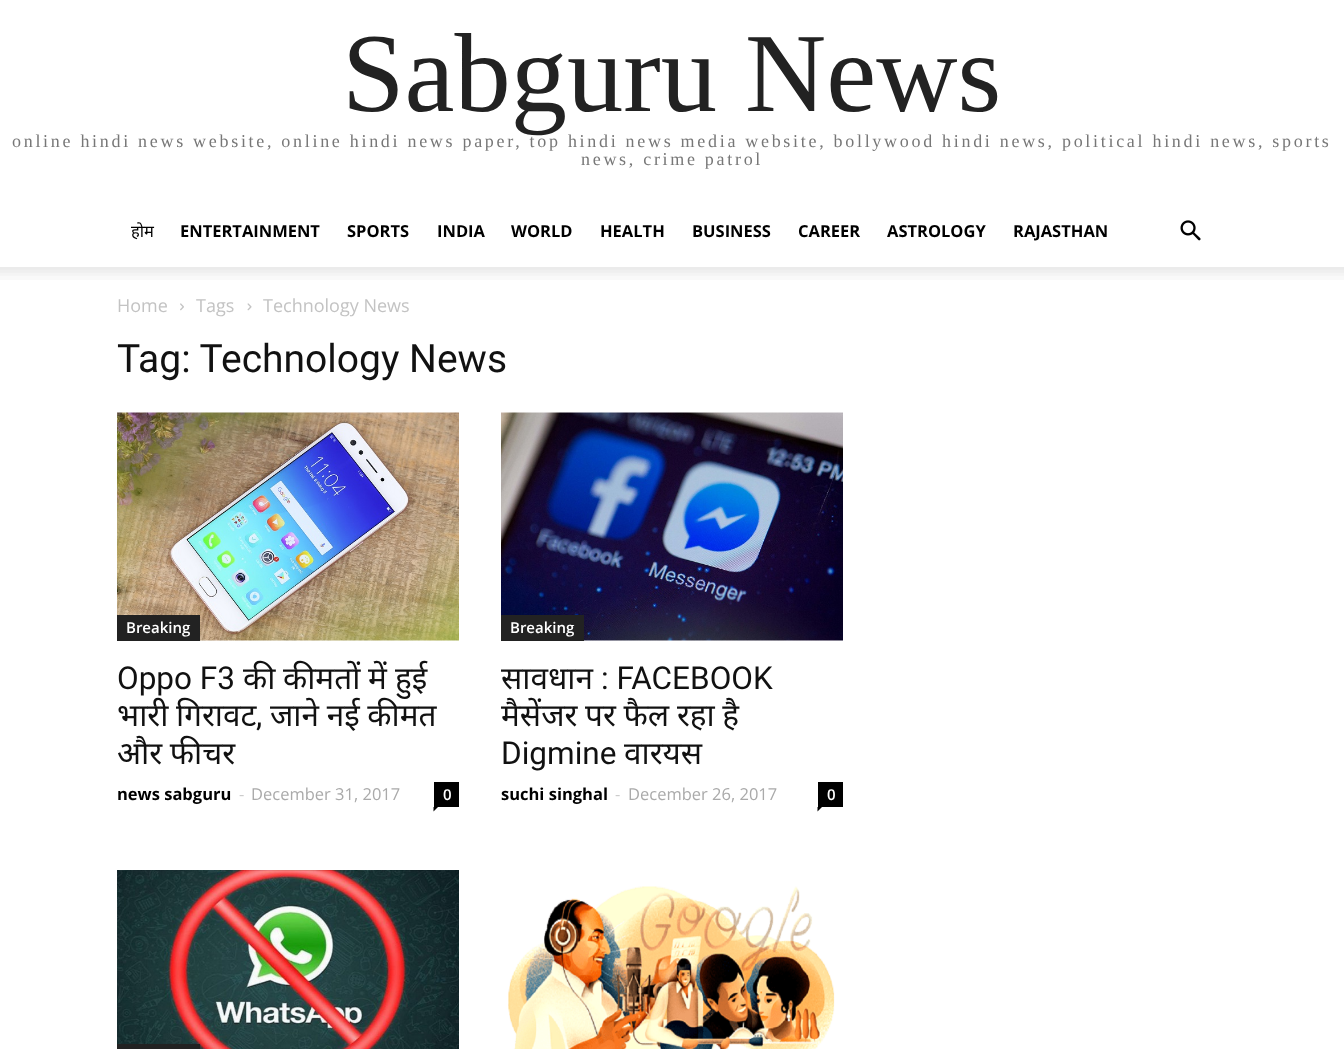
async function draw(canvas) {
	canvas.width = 1344;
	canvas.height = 1049;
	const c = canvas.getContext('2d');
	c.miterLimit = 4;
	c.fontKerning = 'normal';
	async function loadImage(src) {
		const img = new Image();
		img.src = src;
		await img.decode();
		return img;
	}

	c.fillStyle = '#fff';
	c.fillRect(0, 0, 1344, 1049);
	c.font = '112.5px Liberation Serif';
	c.fillStyle = '#222';
	c.fillText('Sabguru News', 342, 111);
	c.letterSpacing = '2.7px';
	c.font = '18px Liberation Serif';
	c.fillStyle = '#777';
	c.fillText('online hindi news website, online hindi news paper, top hindi news media website, bollywood hindi news, political hindi news, sports', 12, 147);
	c.fillText('news, crime patrol', 581, 165);
	c.letterSpacing = '0px';
	c.font = '16.5px Noto Sans';
	c.fillStyle = '#000';
	c.fillText('होम', 131, 237);
	c.font = 'bold 16.5px Open Sans';
	for (const [text, x, y] of [
		['ENTERTAINMENT', 180, 237],
		['SPORTS', 347, 237],
		['INDIA', 437, 237],
		['WORLD', 511, 237],
		['HEALTH', 600, 237],
		['BUSINESS', 692, 237],
		['CAREER', 798, 237],
		['ASTROLOGY', 887, 237],
		['RAJASTHAN', 1013, 237],
	]) {
		c.fillText(text, x, y);
	}
	c.drawImage(await loadImage('img1.png'), 1180, 220, 21, 21);
	c.drawImage(await loadImage('img2.png'), 0, 267, 1344, 13);
	c.font = '18px Open Sans';
	c.fillStyle = '#c3c3c3';
	c.fillText('Home', 117, 312);
	c.drawImage(await loadImage('img3.png'), 180, 303, 4, 8);
	c.fillText('Tags', 196, 312);
	c.drawImage(await loadImage('img4.png'), 247, 303, 5, 8);
	c.fillText('Technology News', 263, 312);
	c.font = '39px Roboto';
	c.fillStyle = '#111';
	c.fillText('Tag: Technology News', 117, 372);
	c.drawImage(await loadImage('img5.png'), 117, 412, 342, 229);
	c.fillStyle = '#222';
	c.fillRect(117, 615, 83, 26);
	c.font = '600 15px Open Sans';
	c.fillStyle = '#fff';
	c.fillText('Breaking', 126, 633);
	c.font = '31.5px Roboto';
	c.fillStyle = '#111';
	c.fillText('Oppo F3', 117, 689);
	c.font = '31.5px Noto Sans';
	for (const [text, x, y] of [
		['की', 243, 689],
		['कीमतों', 283, 689],
		['में', 368, 689],
		['हुई', 395, 689],
	]) {
		c.fillText(text, x, y);
	}
	c.wordSpacing = '-0.5px';
	c.fillText('भारी गिरावट', 117, 726);
	c.wordSpacing = '0px';
	c.font = '31.5px Roboto';
	c.fillText(',', 256, 726);
	c.wordSpacing = '-0.5px';
	c.font = '31.5px Noto Sans';
	c.fillText('जाने नई कीमत', 270, 726);
	c.fillText('और फीचर', 117, 764);
	c.wordSpacing = '0px';
	c.font = 'bold 16.5px Open Sans';
	c.fillStyle = '#000';
	c.fillText('news sabguru', 117, 800);
	c.font = '16.5px Open Sans';
	c.fillStyle = '#ccc';
	c.fillText('-', 239, 800);
	c.fillStyle = '#aaa';
	c.fillText('December 31, 2017', 251, 800);
	c.fillStyle = '#000';
	c.fillRect(434, 782, 25, 25);
	c.font = '600 15px Open Sans';
	c.fillStyle = '#fff';
	c.fillText('0', 443, 800);
	c.fillStyle = '#000';
	c.beginPath();
	c.moveTo(433.5, 807);
	c.lineTo(438, 807);
	c.lineTo(433.5, 811.5);
	c.closePath();
	c.fill();
	c.drawImage(await loadImage('img6.png'), 501, 412, 342, 229);
	c.fillStyle = '#222';
	c.fillRect(501, 615, 83, 26);
	c.fillStyle = '#fff';
	c.fillText('Breaking', 510, 633);
	c.font = '31.5px Noto Sans';
	c.fillStyle = '#111';
	c.fillText('सावधान', 501, 689);
	c.font = '31.5px Roboto';
	c.fillText(': FACEBOOK', 601, 689);
	c.wordSpacing = '-0.5px';
	c.font = '31.5px Noto Sans';
	c.fillText('मैसेंजर पर फैल रहा है', 501, 726);
	c.wordSpacing = '0px';
	c.font = '31.5px Roboto';
	c.fillText('Digmine', 501, 764);
	c.font = '31.5px Noto Sans';
	c.fillText('वारयस', 624, 764);
	c.font = 'bold 16.5px Open Sans';
	c.fillStyle = '#000';
	c.fillText('suchi singhal', 501, 800);
	c.font = '16.5px Open Sans';
	c.fillStyle = '#ccc';
	c.fillText('-', 615, 800);
	c.fillStyle = '#aaa';
	c.fillText('December 26, 2017', 628, 800);
	c.fillStyle = '#000';
	c.fillRect(818, 782, 25, 25);
	c.font = '600 15px Open Sans';
	c.fillStyle = '#fff';
	c.fillText('0', 827, 800);
	c.fillStyle = '#000';
	c.beginPath();
	c.moveTo(817.5, 807);
	c.lineTo(822, 807);
	c.lineTo(817.5, 811.5);
	c.closePath();
	c.fill();
	c.drawImage(await loadImage('img7.png'), 117, 870, 342, 179);
	c.fillStyle = '#222';
	c.fillRect(117, 1044, 83, 5);
	c.drawImage(await loadImage('img8.png'), 508, 886, 327, 163);
}

draw(document.querySelector('canvas'));
